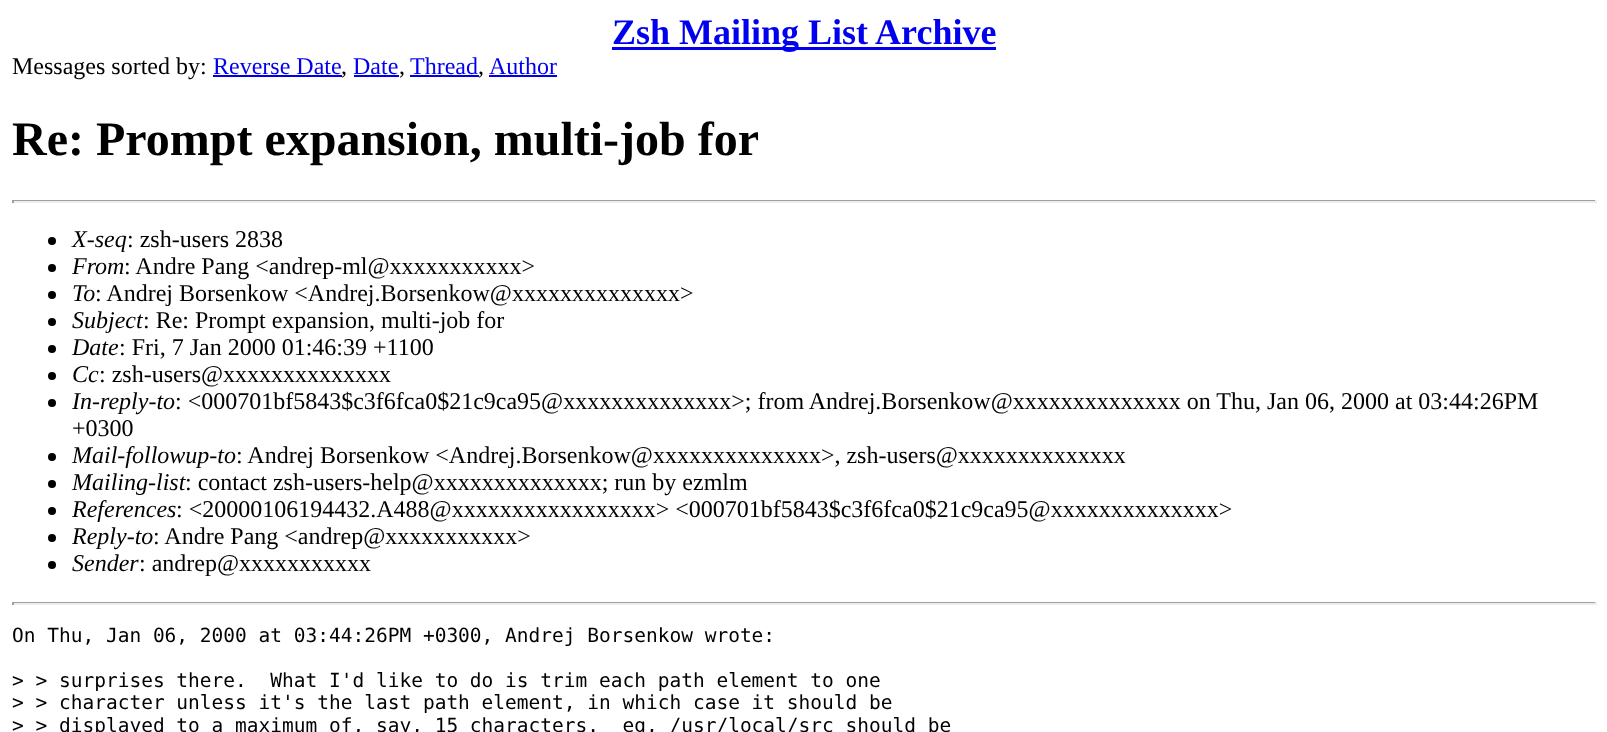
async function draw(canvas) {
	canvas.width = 1607;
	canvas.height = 732;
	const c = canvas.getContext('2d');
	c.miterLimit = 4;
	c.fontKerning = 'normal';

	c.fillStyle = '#fff';
	c.fillRect(0, 0, 1607, 732);
	c.fillStyle = '#00e';
	c.fillRect(612, 47, 384, 3);
	c.font = 'bold 36px Liberation Serif';
	c.fillText('Zsh Mailing List Archive', 612, 44);
	c.font = '24px Liberation Serif';
	c.fillStyle = '#000';
	c.fillText('Messages sorted by:', 12, 74);
	c.fillStyle = '#00e';
	c.fillText('Reverse Date', 213, 74);
	c.fillRect(213, 75, 129, 2);
	c.fillStyle = '#000';
	c.fillText(',', 341, 74);
	c.fillStyle = '#00e';
	c.fillText('Date', 353, 74);
	c.fillRect(354, 75, 45, 2);
	c.fillStyle = '#000';
	c.fillText(',', 399, 74);
	c.fillStyle = '#00e';
	c.fillText('Thread', 410, 74);
	c.fillRect(410, 75, 69, 2);
	c.fillStyle = '#000';
	c.fillText(',', 478, 74);
	c.fillStyle = '#00e';
	c.fillText('Author', 489, 74);
	c.fillRect(489, 75, 68, 2);
	c.font = 'bold 48px Liberation Serif';
	c.fillStyle = '#000';
	c.fillText('Re: Prompt expansion, multi-job for', 12, 155);
	for (const [x, y, w, h, color] of [
		[12, 200, 1584, 1, '#9f9f9f'],
		[1595, 200, 2, 3, '#eee'],
		[12, 201, 1584, 2, '#eee'],
		[12, 200, 2, 3, '#9f9f9f'],
	]) {
		c.fillStyle = color;
		c.fillRect(x, y, w, h);
	}
	c.fillStyle = '#000';
	c.beginPath();
	c.arc(52, 241, 4, 0, 2 * Math.PI);
	c.fill();
	c.font = 'italic 24px Liberation Serif';
	c.fillText('X-seq', 72, 247);
	c.font = '24px Liberation Serif';
	c.fillText(': zsh-users 2838', 127, 247);
	c.beginPath();
	c.arc(52, 268, 4, 0, 2 * Math.PI);
	c.fill();
	c.font = 'italic 24px Liberation Serif';
	c.fillText('From', 72, 274);
	c.font = '24px Liberation Serif';
	c.fillText(': Andre Pang <andrep-ml@xxxxxxxxxxx>', 124, 274);
	c.beginPath();
	c.arc(52, 295, 4, 0, 2 * Math.PI);
	c.fill();
	c.font = 'italic 24px Liberation Serif';
	c.fillText('To', 72, 301);
	c.font = '24px Liberation Serif';
	c.fillText(': Andrej Borsenkow <Andrej.Borsenkow@xxxxxxxxxxxxxx>', 95, 301);
	c.beginPath();
	c.arc(52, 322, 4, 0, 2 * Math.PI);
	c.fill();
	c.font = 'italic 24px Liberation Serif';
	c.fillText('Subject', 72, 328);
	c.font = '24px Liberation Serif';
	c.fillText(': Re: Prompt expansion, multi-job for', 143, 328);
	c.beginPath();
	c.arc(52, 349, 4, 0, 2 * Math.PI);
	c.fill();
	c.font = 'italic 24px Liberation Serif';
	c.fillText('Date', 72, 355);
	c.font = '24px Liberation Serif';
	c.fillText(': Fri, 7 Jan 2000 01:46:39 +1100', 119, 355);
	c.beginPath();
	c.arc(52, 376, 4, 0, 2 * Math.PI);
	c.fill();
	c.font = 'italic 24px Liberation Serif';
	c.fillText('Cc', 72, 382);
	c.font = '24px Liberation Serif';
	c.fillText(': zsh-users@xxxxxxxxxxxxxx', 99, 382);
	c.beginPath();
	c.arc(52, 403, 4, 0, 2 * Math.PI);
	c.fill();
	c.font = 'italic 24px Liberation Serif';
	c.fillText('In-reply-to', 72, 409);
	c.font = '24px Liberation Serif';
	c.fillText(': <000701bf5843$c3f6fca0$21c9ca95@xxxxxxxxxxxxxx>; from Andrej.Borsenkow@xxxxxxxxxxxxxx on Thu, Jan 06, 2000 at 03:44:26PM', 175, 409);
	c.fillText('+0300', 72, 436);
	c.beginPath();
	c.arc(52, 457, 4, 0, 2 * Math.PI);
	c.fill();
	c.font = 'italic 24px Liberation Serif';
	c.fillText('Mail-followup-to', 72, 463);
	c.font = '24px Liberation Serif';
	c.fillText(': Andrej Borsenkow <Andrej.Borsenkow@xxxxxxxxxxxxxx>, zsh-users@xxxxxxxxxxxxxx', 236, 463);
	c.beginPath();
	c.arc(52, 484, 4, 0, 2 * Math.PI);
	c.fill();
	c.font = 'italic 24px Liberation Serif';
	c.fillText('Mailing-list', 72, 490);
	c.font = '24px Liberation Serif';
	c.fillText(': contact zsh-users-help@xxxxxxxxxxxxxx; run by ezmlm', 185, 490);
	c.beginPath();
	c.arc(52, 511, 4, 0, 2 * Math.PI);
	c.fill();
	c.font = 'italic 24px Liberation Serif';
	c.fillText('References', 72, 517);
	c.font = '24px Liberation Serif';
	c.fillText(': <20000106194432.A488@xxxxxxxxxxxxxxxxx> <000701bf5843$c3f6fca0$21c9ca95@xxxxxxxxxxxxxx>', 176, 517);
	c.beginPath();
	c.arc(52, 538, 4, 0, 2 * Math.PI);
	c.fill();
	c.font = 'italic 24px Liberation Serif';
	c.fillText('Reply-to', 72, 544);
	c.font = '24px Liberation Serif';
	c.fillText(': Andre Pang <andrep@xxxxxxxxxxx>', 153, 544);
	c.beginPath();
	c.arc(52, 565, 4, 0, 2 * Math.PI);
	c.fill();
	c.font = 'italic 24px Liberation Serif';
	c.fillText('Sender', 72, 571);
	c.font = '24px Liberation Serif';
	c.fillText(': andrep@xxxxxxxxxxx', 139, 571);
	for (const [x, y, w, h, color] of [
		[12, 602, 1584, 1, '#9f9f9f'],
		[1595, 602, 2, 3, '#eee'],
		[12, 603, 1584, 2, '#eee'],
		[12, 602, 2, 3, '#9f9f9f'],
	]) {
		c.fillStyle = color;
		c.fillRect(x, y, w, h);
	}
	c.font = '19.5px DejaVu Sans Mono';
	c.fillStyle = '#000';
	for (const [text, x, y] of [
		['On Thu, Jan 06, 2000 at 03:44:26PM +0300, Andrej Borsenkow wrote:', 12, 642],
		['> > surprises there.  What I\'d like to do is trim each path element to one', 12, 687],
		['> > character unless it\'s the last path element, in which case it should be', 12, 709],
		['> > displayed to a maximum of, say, 15 characters.  eg, /usr/local/src should be', 12, 732],
	]) {
		c.fillText(text, x, y);
	}
}

draw(document.querySelector('canvas'));
